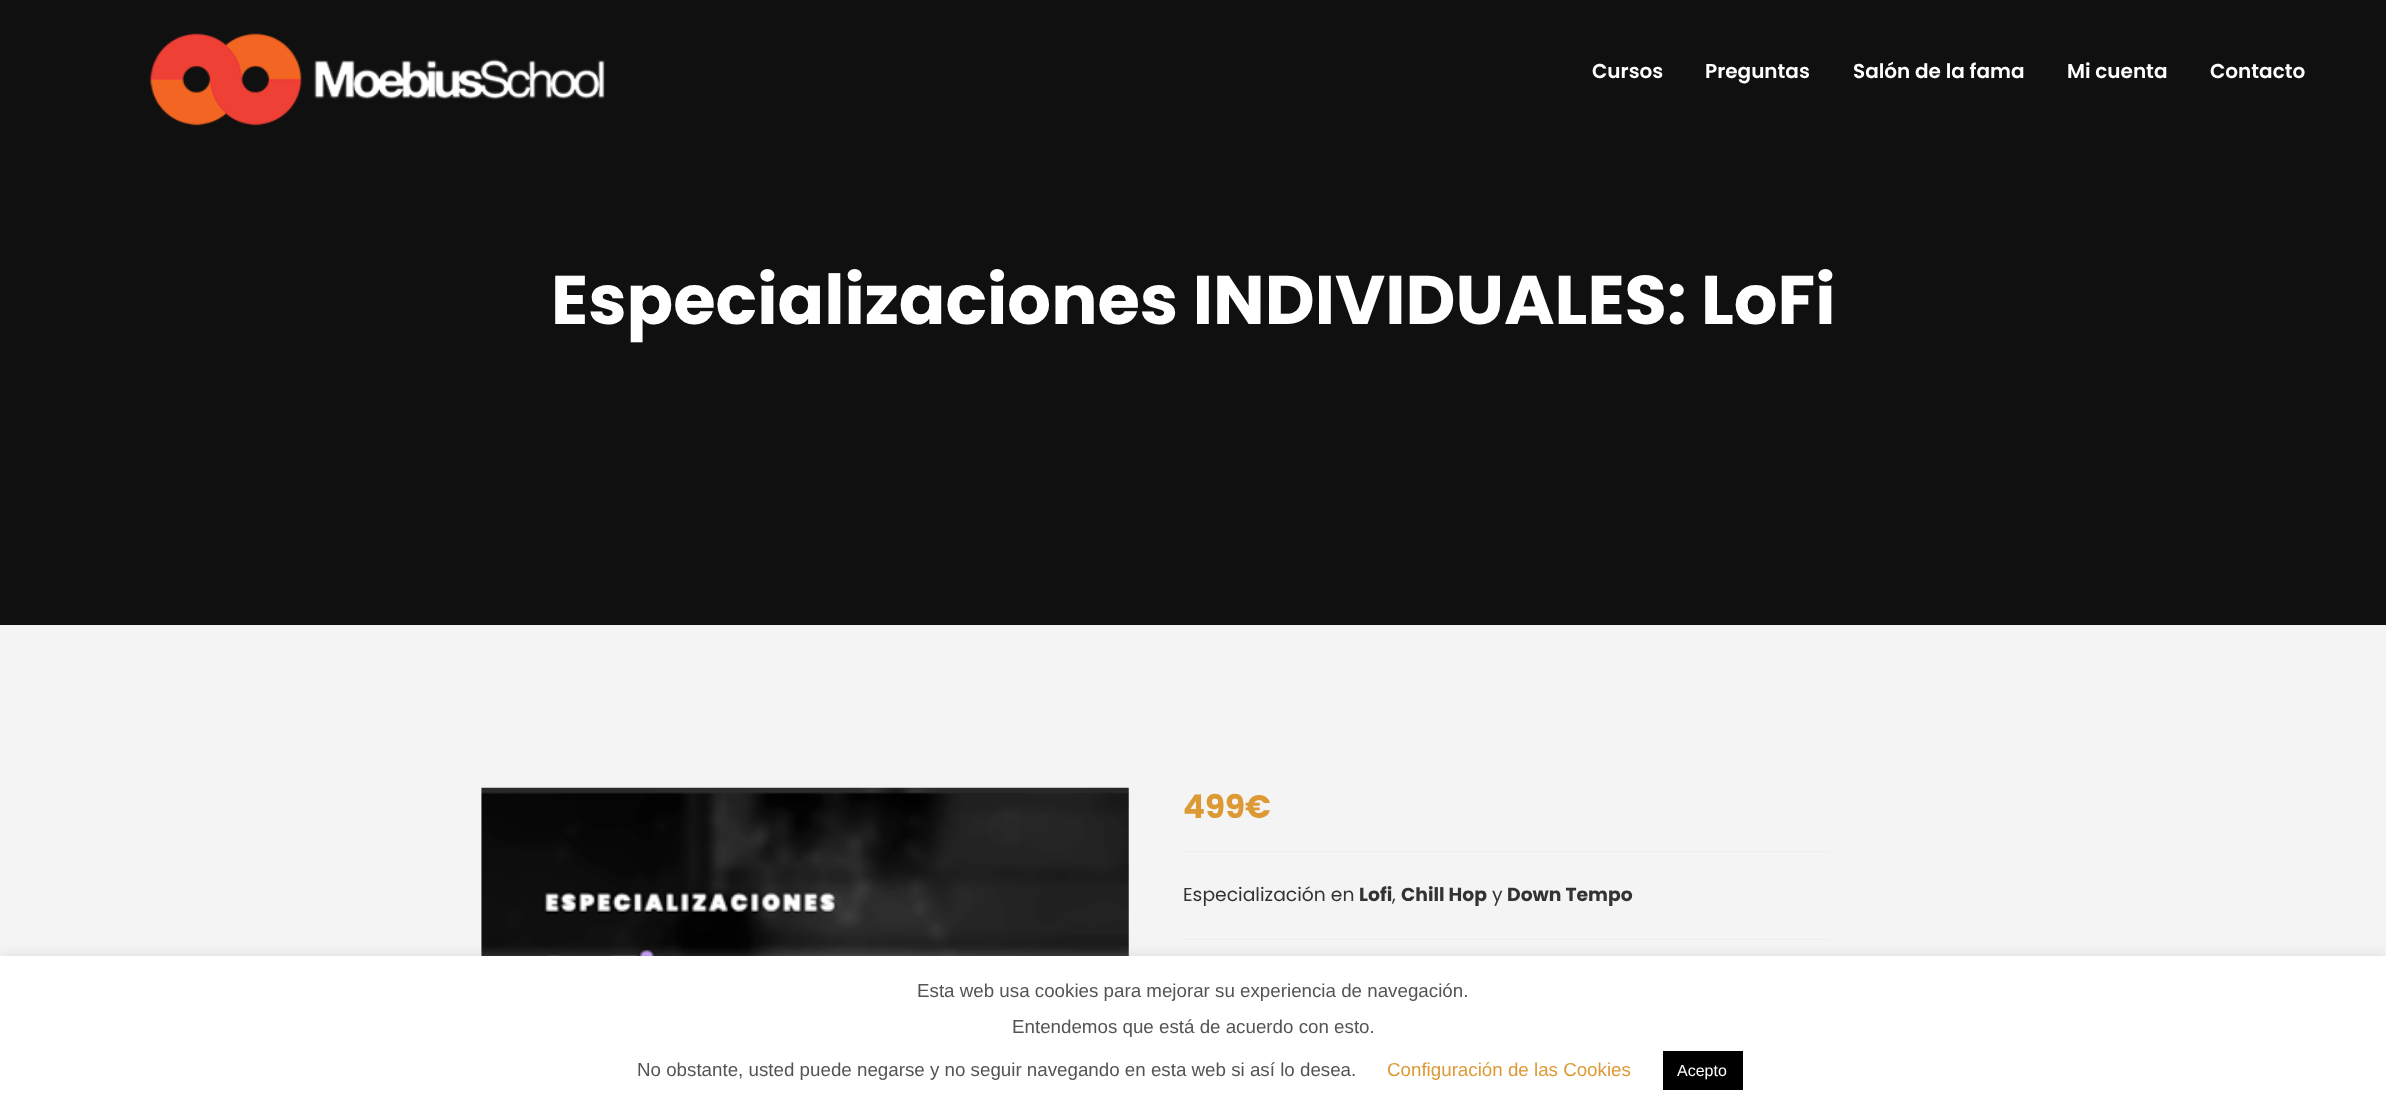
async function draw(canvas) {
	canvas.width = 2386;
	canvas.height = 1111;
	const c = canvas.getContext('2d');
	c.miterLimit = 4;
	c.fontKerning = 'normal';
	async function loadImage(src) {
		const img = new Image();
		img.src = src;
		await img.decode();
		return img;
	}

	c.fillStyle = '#f4f4f4';
	c.fillRect(0, 0, 2386, 1111);
	c.fillStyle = '#111010';
	c.fillRect(0, 0, 2386, 625);
	c.drawImage(await loadImage('img1.png'), 149, 33, 456, 93);
	c.font = '600 20px Poppins';
	c.fillStyle = '#fff';
	for (const [text, x, y] of [
		['Cursos', 1592, 78],
		['Preguntas', 1705, 78],
		['Salón de la fama', 1853, 78],
		['Mi cuenta', 2067, 78],
		['Contacto', 2210, 78],
	]) {
		c.fillText(text, x, y);
	}
	c.font = 'bold 68.75px Poppins';
	c.fillText('Especializaciones INDIVIDUALES: LoFi', 551, 324);
	c.drawImage(await loadImage('img2.png'), 481, 787, 648, 169);
	c.fillStyle = '#eee';
	c.fillRect(1183, 851, 648, 1);
	c.font = 'bold 32.5px Poppins';
	c.fillStyle = '#d93';
	c.fillText('499€', 1183, 818);
	c.fillStyle = '#eee';
	c.fillRect(1183, 939, 648, 1);
	c.font = '18.75px Poppins';
	c.fillStyle = '#333';
	c.fillText('Especialización en', 1183, 901);
	c.font = 'bold 18.75px Poppins';
	c.fillText('Lofi', 1359, 901);
	c.font = '18.75px Poppins';
	c.fillText(',', 1392, 901);
	c.font = 'bold 18.75px Poppins';
	c.fillText('Chill Hop', 1401, 901);
	c.font = '18.75px Poppins';
	c.fillText('y', 1492, 901);
	c.font = 'bold 18.75px Poppins';
	c.fillText('Down Tempo', 1507, 901);
	c.fillStyle = '#acabab4d';
	c.filter = 'blur(6px)';
	c.beginPath();
	c.rect(0, 955, 2386, 155);
	c.fill();
	c.filter = 'none';
	c.fillStyle = '#fff';
	c.fillRect(0, 956, 2386, 155);
	c.font = '18.75px Liberation Sans';
	c.fillStyle = '#545454';
	for (const [text, x, y] of [
		['Esta web usa cookies para mejorar su experiencia de navegación.', 917, 997],
		['Entendemos que está de acuerdo con esto.', 1012, 1033],
		['No obstante, usted puede negarse y no seguir navegando en esta web si así lo desea.', 637, 1076],
	]) {
		c.fillText(text, x, y);
	}
	c.fillStyle = '#d93';
	c.fillText('Configuración de las Cookies', 1387, 1076);
	c.fillStyle = '#000';
	c.fillRect(1663, 1051, 80, 39);
	c.font = '16px Liberation Sans';
	c.fillStyle = '#fff';
	c.fillText('Acepto', 1677, 1076);
}

draw(document.querySelector('canvas'));
